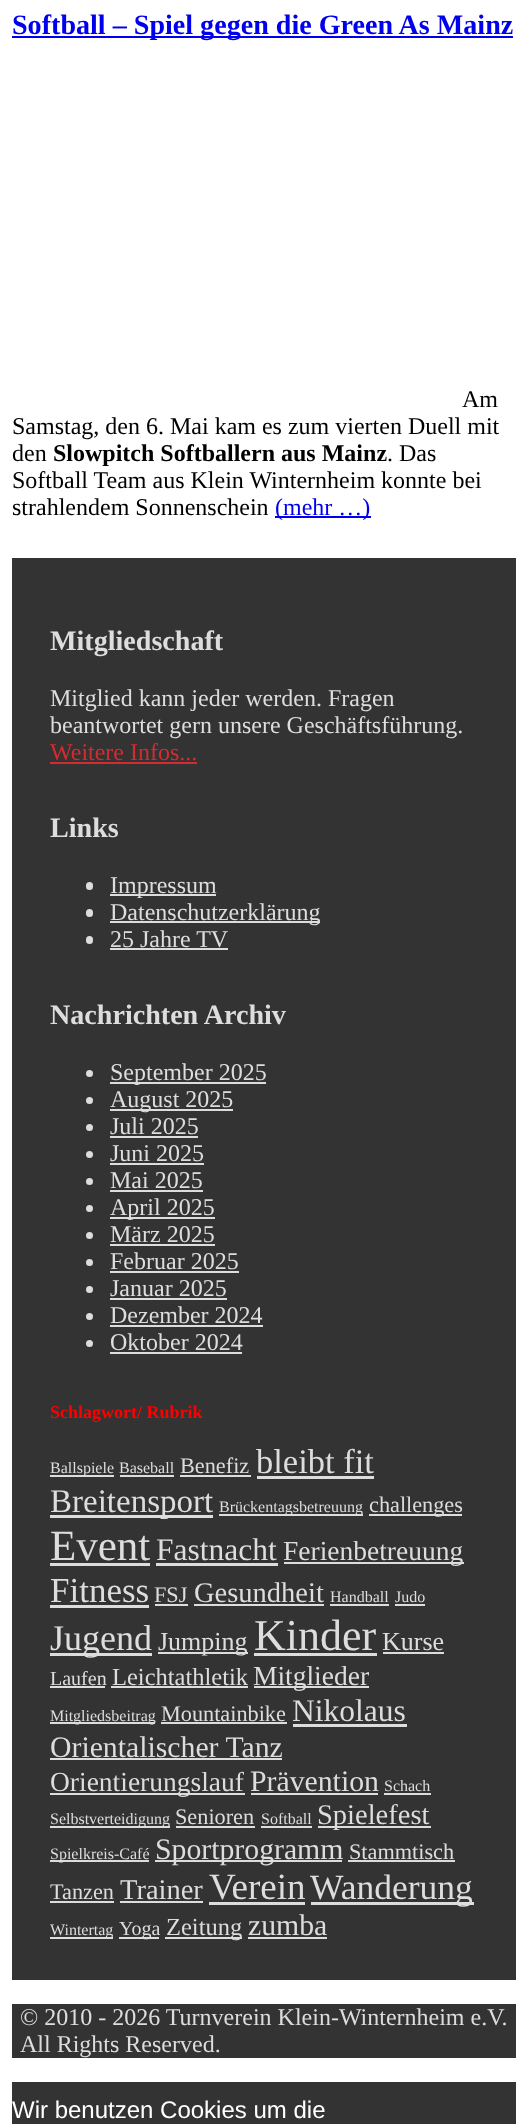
async function draw(canvas) {
	canvas.width = 528;
	canvas.height = 2124;
	const c = canvas.getContext('2d');
	c.miterLimit = 4;
	c.fontKerning = 'normal';

	c.fillStyle = '#fff';
	c.fillRect(0, 0, 528, 2124);
	c.fillStyle = '#00e';
	c.fillRect(12, 36, 501, 2);
	c.font = 'bold 28.1px Liberation Serif';
	c.fillText('Softball – Spiel gegen die Green As Mainz', 12, 34);
	c.font = '24px Liberation Serif';
	c.fillStyle = '#000';
	for (const [text, x, y] of [
		['Am', 462, 407],
		['Samstag, den 6. Mai kam es zum vierten Duell mit', 12, 434],
		['den', 12, 461],
	]) {
		c.fillText(text, x, y);
	}
	c.font = 'bold 24px Liberation Serif';
	c.fillText('Slowpitch Softballern aus Mainz', 53, 461);
	c.font = '24px Liberation Serif';
	for (const [text, x, y] of [
		['. Das', 387, 461],
		['Softball Team aus Klein Winternheim konnte bei', 12, 488],
		['strahlendem Sonnenschein', 12, 515],
	]) {
		c.fillText(text, x, y);
	}
	c.fillStyle = '#00e';
	c.fillRect(275, 516, 96, 2);
	c.fillText('(mehr …)', 275, 515);
	c.fillStyle = '#333';
	c.fillRect(12, 558, 504, 1422);
	c.font = 'bold 28.1px Liberation Serif';
	c.fillStyle = '#ddd';
	c.fillText('Mitgliedschaft', 50, 650);
	c.font = '24px Liberation Serif';
	c.fillText('Mitglied kann jeder werden. Fragen', 50, 706);
	c.fillText('beantwortet gern unsere Geschäftsführung.', 50, 733);
	c.fillStyle = '#d32c30';
	c.fillText('Weitere Infos...', 50, 760);
	c.fillRect(50, 762, 147, 2);
	c.font = 'bold 28.1px Liberation Serif';
	c.fillStyle = '#ddd';
	c.fillText('Links', 50, 837);
	c.beginPath();
	c.roundRect(86, 882, 7, 8, 3.5);
	c.fill();
	c.fillRect(110, 894, 106, 2);
	c.font = '24px Liberation Serif';
	c.fillText('Impressum', 110, 893);
	c.beginPath();
	c.roundRect(86, 909, 7, 8, 3.5);
	c.fill();
	c.fillRect(110, 921, 210, 2);
	c.fillText('Datenschutzerklärung', 110, 920);
	c.beginPath();
	c.roundRect(86, 936, 7, 8, 3.5);
	c.fill();
	c.fillText('25 Jahre TV', 110, 947);
	c.fillRect(110, 948, 118, 2);
	c.font = 'bold 28.1px Liberation Serif';
	c.fillText('Nachrichten Archiv', 50, 1024);
	c.beginPath();
	c.arc(89.5, 1073.5, 3.5, 0, 2 * Math.PI);
	c.fill();
	c.fillRect(110, 1082, 156, 2);
	c.font = '24px Liberation Serif';
	c.fillText('September 2025', 110, 1080);
	c.beginPath();
	c.arc(89.5, 1100.5, 3.5, 0, 2 * Math.PI);
	c.fill();
	c.fillRect(110, 1109, 123, 2);
	c.fillText('August 2025', 110, 1107);
	c.beginPath();
	c.arc(89.5, 1127.5, 3.5, 0, 2 * Math.PI);
	c.fill();
	c.fillText('Juli 2025', 110, 1134);
	c.fillRect(110, 1136, 88, 2);
	c.beginPath();
	c.arc(89.5, 1154.5, 3.5, 0, 2 * Math.PI);
	c.fill();
	c.fillText('Juni 2025', 110, 1161);
	c.fillRect(110, 1163, 94, 2);
	c.beginPath();
	c.arc(89.5, 1181.5, 3.5, 0, 2 * Math.PI);
	c.fill();
	c.fillText('Mai 2025', 110, 1188);
	c.fillRect(110, 1190, 93, 2);
	c.beginPath();
	c.arc(89.5, 1208.5, 3.5, 0, 2 * Math.PI);
	c.fill();
	c.fillRect(110, 1217, 105, 2);
	c.fillText('April 2025', 110, 1215);
	c.beginPath();
	c.arc(89.5, 1235.5, 3.5, 0, 2 * Math.PI);
	c.fill();
	c.fillText('März 2025', 110, 1242);
	c.fillRect(110, 1244, 105, 2);
	c.beginPath();
	c.arc(89.5, 1262.5, 3.5, 0, 2 * Math.PI);
	c.fill();
	c.fillText('Februar 2025', 110, 1269);
	c.fillRect(110, 1271, 129, 2);
	c.beginPath();
	c.arc(89.5, 1289.5, 3.5, 0, 2 * Math.PI);
	c.fill();
	c.fillText('Januar 2025', 110, 1296);
	c.fillRect(110, 1298, 117, 2);
	c.beginPath();
	c.arc(89.5, 1316.5, 3.5, 0, 2 * Math.PI);
	c.fill();
	c.fillText('Dezember 2024', 110, 1323);
	c.fillRect(110, 1325, 153, 2);
	c.beginPath();
	c.arc(89.5, 1343.5, 3.5, 0, 2 * Math.PI);
	c.fill();
	c.fillText('Oktober 2024', 110, 1350);
	c.fillRect(110, 1352, 132, 2);
	c.font = 'bold 18px Liberation Serif';
	c.fillStyle = '#f00';
	c.fillText('Schlagwort/ Rubrik', 50, 1418);
	c.fillStyle = '#ddd';
	c.fillRect(50, 1475, 64, 2);
	c.font = '16px Liberation Serif';
	c.fillText('Ballspiele', 50, 1473);
	c.fillText('Baseball', 119, 1473);
	c.fillRect(120, 1475, 54, 2);
	c.font = '22.25px Liberation Serif';
	c.fillText('Benefiz', 180, 1473);
	c.fillRect(180, 1475, 71, 2);
	c.font = '34.5px Liberation Serif';
	c.fillText('bleibt fit', 256, 1473);
	c.fillRect(257, 1476, 117, 3);
	c.fillRect(50, 1515, 163, 3);
	c.font = '33px Liberation Serif';
	c.fillText('Breitensport', 50, 1512);
	c.fillRect(219, 1514, 144, 2);
	c.font = '16px Liberation Serif';
	c.fillText('Brückentagsbetreuung', 219, 1512);
	c.fillRect(369, 1514, 93, 2);
	c.font = '22.25px Liberation Serif';
	c.fillText('challenges', 369, 1512);
	c.font = '43px Liberation Serif';
	c.fillText('Event', 50, 1560);
	c.fillRect(50, 1563, 100, 3);
	c.font = '31.5px Liberation Serif';
	c.fillText('Fastnacht', 156, 1560);
	c.fillRect(156, 1563, 122, 3);
	c.fillRect(284, 1562, 180, 2);
	c.font = '27.5px Liberation Serif';
	c.fillText('Ferienbetreuung', 283, 1560);
	c.font = '35px Liberation Serif';
	c.fillText('Fitness', 50, 1602);
	c.fillRect(50, 1605, 99, 3);
	c.font = '22.25px Liberation Serif';
	c.fillText('FSJ', 154, 1602);
	c.fillRect(155, 1604, 33, 2);
	c.font = '28.5px Liberation Serif';
	c.fillText('Gesundheit', 194, 1602);
	c.fillRect(194, 1604, 130, 2);
	c.font = '16px Liberation Serif';
	c.fillText('Handball', 330, 1602);
	c.fillRect(330, 1604, 59, 2);
	c.fillText('Judo', 395, 1602);
	c.fillRect(395, 1604, 30, 2);
	c.fillRect(50, 1653, 102, 3);
	c.font = '36px Liberation Serif';
	c.fillText('Jugend', 50, 1650);
	c.fillRect(158, 1652, 90, 2);
	c.font = '26px Liberation Serif';
	c.fillText('Jumping', 158, 1650);
	c.font = '44px Liberation Serif';
	c.fillText('Kinder', 254, 1650);
	c.fillRect(254, 1653, 123, 3);
	c.font = '26px Liberation Serif';
	c.fillText('Kurse', 382, 1650);
	c.fillRect(383, 1652, 61, 2);
	c.font = '20px Liberation Serif';
	c.fillText('Laufen', 50, 1685);
	c.fillRect(50, 1686, 55, 2);
	c.font = '24.5px Liberation Serif';
	c.fillText('Leichtathletik', 112, 1685);
	c.fillRect(111, 1686, 137, 2);
	c.fillRect(254, 1686, 115, 2);
	c.font = '27.5px Liberation Serif';
	c.fillText('Mitglieder', 253, 1685);
	c.fillRect(50, 1722, 105, 2);
	c.font = '16px Liberation Serif';
	c.fillText('Mitgliedsbeitrag', 50, 1721);
	c.font = '22.25px Liberation Serif';
	c.fillText('Mountainbike', 161, 1721);
	c.fillRect(161, 1722, 126, 2);
	c.font = '31.5px Liberation Serif';
	c.fillText('Nikolaus', 292, 1721);
	c.fillRect(293, 1724, 114, 3);
	c.font = '29.75px Liberation Serif';
	c.fillText('Orientalischer Tanz', 50, 1757);
	c.fillRect(50, 1758, 232, 2);
	c.fillRect(50, 1793, 195, 2);
	c.font = '27.5px Liberation Serif';
	c.fillText('Orientierungslauf', 50, 1791);
	c.font = '29.75px Liberation Serif';
	c.fillText('Prävention', 250, 1791);
	c.fillRect(251, 1793, 127, 2);
	c.font = '16px Liberation Serif';
	c.fillText('Schach', 384, 1791);
	c.fillRect(384, 1793, 47, 2);
	c.fillRect(50, 1826, 120, 2);
	c.fillText('Selbstverteidigung', 50, 1824);
	c.font = '22.25px Liberation Serif';
	c.fillText('Senioren', 175, 1824);
	c.fillRect(176, 1826, 79, 2);
	c.font = '16px Liberation Serif';
	c.fillText('Softball', 261, 1824);
	c.fillRect(261, 1826, 51, 2);
	c.fillRect(318, 1826, 113, 2);
	c.font = '28.5px Liberation Serif';
	c.fillText('Spielefest', 317, 1824);
	c.fillRect(50, 1860, 99, 2);
	c.font = '16px Liberation Serif';
	c.fillText('Spielkreis-Café', 50, 1859);
	c.fillRect(155, 1860, 187, 2);
	c.font = '29.75px Liberation Serif';
	c.fillText('Sportprogramm', 155, 1859);
	c.font = '22.25px Liberation Serif';
	c.fillText('Stammtisch', 349, 1859);
	c.fillRect(348, 1860, 107, 2);
	c.fillText('Tanzen', 50, 1899);
	c.fillRect(50, 1901, 64, 2);
	c.font = '28.5px Liberation Serif';
	c.fillText('Trainer', 120, 1899);
	c.fillRect(120, 1901, 83, 2);
	c.font = '37px Liberation Serif';
	c.fillText('Verein', 209, 1899);
	c.fillRect(209, 1902, 96, 3);
	c.fillRect(311, 1902, 163, 3);
	c.font = '35.5px Liberation Serif';
	c.fillText('Wanderung', 310, 1899);
	c.fillRect(50, 1937, 63, 2);
	c.font = '16px Liberation Serif';
	c.fillText('Wintertag', 50, 1935);
	c.fillRect(119, 1937, 40, 2);
	c.font = '20px Liberation Serif';
	c.fillText('Yoga', 119, 1935);
	c.fillRect(165, 1937, 77, 2);
	c.font = '24.5px Liberation Serif';
	c.fillText('Zeitung', 166, 1935);
	c.font = '29.75px Liberation Serif';
	c.fillText('zumba', 248, 1935);
	c.fillRect(248, 1937, 79, 2);
	c.fillStyle = '#333';
	c.fillRect(12, 2004, 504, 54);
	c.font = '24px Liberation Serif';
	c.fillStyle = '#ddd';
	c.fillText('© 2010 - 2026 Turnverein Klein-Winternheim e.V.', 20, 2025);
	c.fillText('All Rights Reserved.', 20, 2052);
	c.fillStyle = '#333';
	c.fillRect(12, 2082, 504, 42);
	c.font = '24px Liberation Sans';
	c.fillStyle = '#fff';
	c.fillText('Wir benutzen Cookies um die', 12, 2118);
}

draw(document.querySelector('canvas'));
